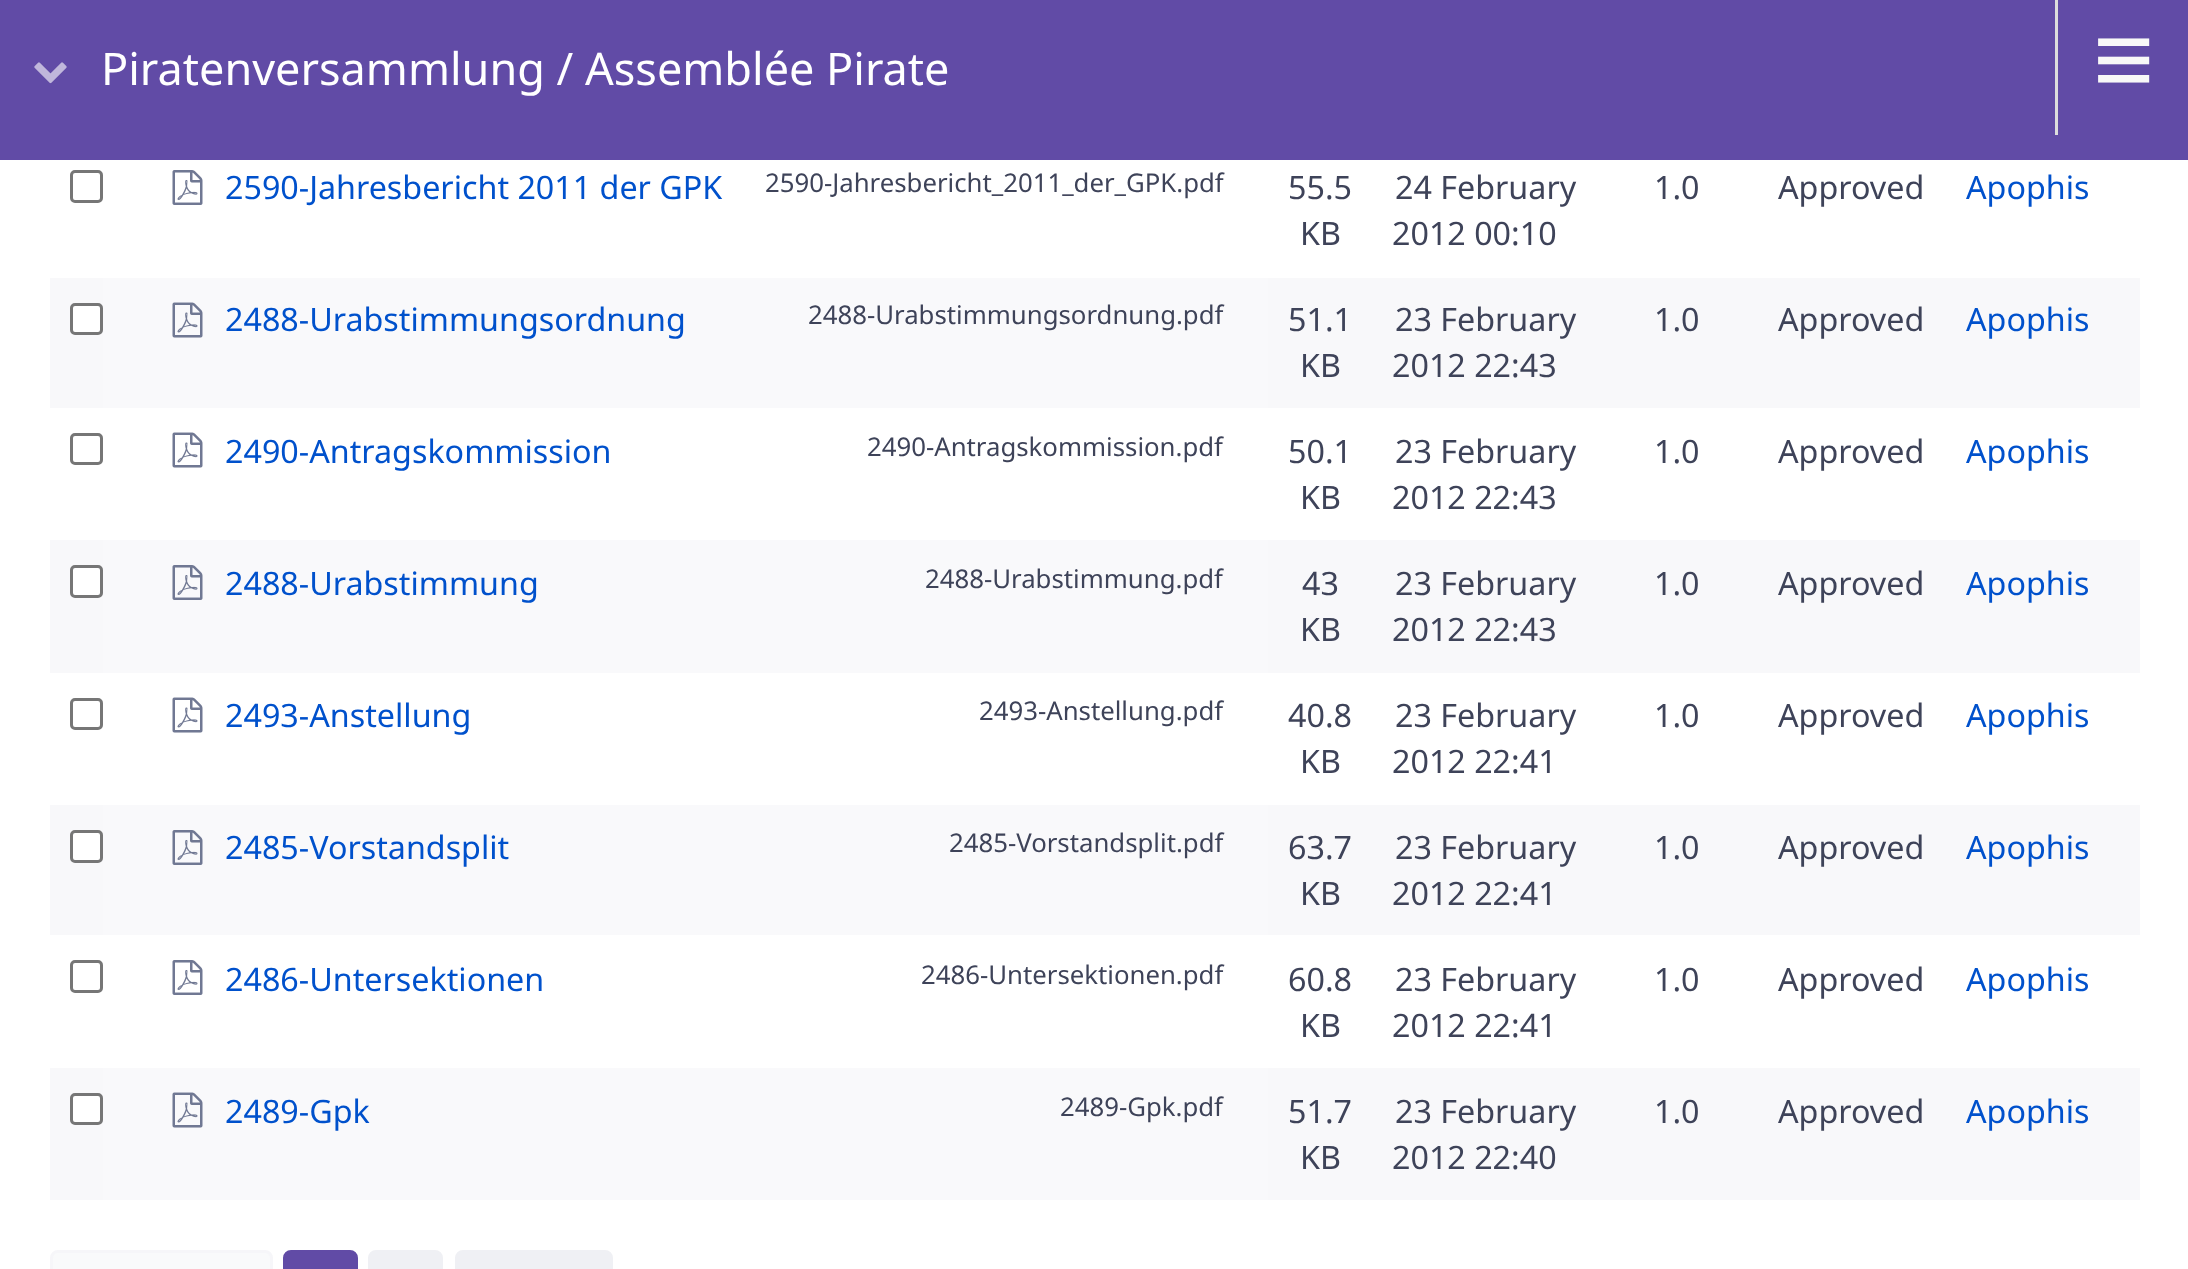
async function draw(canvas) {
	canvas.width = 2188;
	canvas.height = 1269;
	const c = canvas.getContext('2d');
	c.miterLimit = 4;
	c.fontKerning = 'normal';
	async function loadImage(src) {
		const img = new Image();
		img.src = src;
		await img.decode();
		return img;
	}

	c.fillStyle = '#fff';
	c.fillRect(0, 0, 2188, 1269);
	c.fillStyle = '#614ba6';
	c.fillRect(0, 0, 2188, 160);
	c.drawImage(await loadImage('img1.png'), 34, 62, 33, 22);
	c.font = '45px Noto Sans';
	c.fillStyle = '#fff';
	c.fillText('Piratenversammlung / Assemblée Pirate', 101, 85);
	c.fillStyle = '#ddd';
	c.fillRect(2055, 0, 3, 135);
	c.font = '105px Liberation Sans';
	c.fillStyle = '#f8f8f8';
	c.fillText('≡', 2093, 95);
	c.beginPath();
	c.roundRect(71.5, 171.5, 30, 30, 3.5);
	c.strokeStyle = '#767676';
	c.lineWidth = 3;
	c.stroke();
	c.drawImage(await loadImage('img2.png'), 172, 170, 31, 35);
	c.font = '32.25px Noto Sans';
	c.fillStyle = '#0051cc';
	c.fillText('2590-Jahresbericht 2011 der GPK', 225, 199);
	c.font = '25.75px Noto Sans';
	c.fillStyle = '#3e4359';
	c.fillText('2590-Jahresbericht_2011_der_GPK.pdf', 765, 192);
	c.font = '32.25px Noto Sans';
	for (const [text, x, y] of [
		['55.5', 1288, 199],
		['KB', 1300, 245],
		['24 February', 1395, 199],
		['2012 00:10', 1392, 245],
		['1.0', 1654, 199],
		['Approved', 1778, 199],
	]) {
		c.fillText(text, x, y);
	}
	c.fillStyle = '#0051cc';
	c.fillText('Apophis', 1966, 199);
	c.fillStyle = '#f8f8fa';
	c.fillRect(50, 278, 53, 130);
	c.fillStyle = '#fff';
	c.beginPath();
	c.roundRect(71.5, 304.5, 30, 29, 3.5);
	c.fill();
	c.stroke();
	c.fillStyle = '#f9f9fb';
	c.fillRect(103, 278, 1165, 130);
	c.drawImage(await loadImage('img3.png'), 172, 302, 31, 36);
	c.fillStyle = '#0051cc';
	c.fillText('2488-Urabstimmungsordnung', 225, 331);
	c.font = '25.75px Noto Sans';
	c.fillStyle = '#3e4359';
	c.fillText('2488-Urabstimmungsordnung.pdf', 808, 324);
	c.fillStyle = '#f8f8fa';
	c.fillRect(1268, 278, 872, 130);
	c.font = '32.25px Noto Sans';
	c.fillStyle = '#3e4359';
	for (const [text, x, y] of [
		['51.1', 1288, 331],
		['KB', 1300, 377],
		['23 February', 1395, 331],
		['2012 22:43', 1392, 377],
		['1.0', 1654, 331],
		['Approved', 1778, 331],
	]) {
		c.fillText(text, x, y);
	}
	c.fillStyle = '#0051cc';
	c.fillText('Apophis', 1966, 331);
	c.beginPath();
	c.roundRect(71.5, 434.5, 30, 29, 3.5);
	c.stroke();
	c.drawImage(await loadImage('img4.png'), 172, 432, 31, 36);
	c.fillText('2490-Antragskommission', 225, 463);
	c.font = '25.75px Noto Sans';
	c.fillStyle = '#3e4359';
	c.fillText('2490-Antragskommission.pdf', 867, 456);
	c.font = '32.25px Noto Sans';
	for (const [text, x, y] of [
		['50.1', 1288, 463],
		['KB', 1300, 509],
		['23 February', 1395, 463],
		['2012 22:43', 1392, 509],
		['1.0', 1654, 463],
		['Approved', 1778, 463],
	]) {
		c.fillText(text, x, y);
	}
	c.fillStyle = '#0051cc';
	c.fillText('Apophis', 1966, 463);
	c.fillStyle = '#f8f8fa';
	c.fillRect(50, 540, 53, 133);
	c.fillStyle = '#fff';
	c.beginPath();
	c.roundRect(71.5, 566.5, 30, 30, 3.5);
	c.fill();
	c.stroke();
	c.fillStyle = '#f9f9fb';
	c.fillRect(103, 540, 1165, 133);
	c.drawImage(await loadImage('img5.png'), 172, 565, 31, 35);
	c.fillStyle = '#0051cc';
	c.fillText('2488-Urabstimmung', 225, 595);
	c.font = '25.75px Noto Sans';
	c.fillStyle = '#3e4359';
	c.fillText('2488-Urabstimmung.pdf', 925, 588);
	c.fillStyle = '#f8f8fa';
	c.fillRect(1268, 540, 872, 133);
	c.font = '32.25px Noto Sans';
	c.fillStyle = '#3e4359';
	for (const [text, x, y] of [
		['43', 1302, 595],
		['KB', 1300, 641],
		['23 February', 1395, 595],
		['2012 22:43', 1392, 641],
		['1.0', 1654, 595],
		['Approved', 1778, 595],
	]) {
		c.fillText(text, x, y);
	}
	c.fillStyle = '#0051cc';
	c.fillText('Apophis', 1966, 595);
	c.beginPath();
	c.roundRect(71.5, 699.5, 30, 29, 3.5);
	c.stroke();
	c.drawImage(await loadImage('img4.png'), 172, 697, 31, 36);
	c.fillText('2493-Anstellung', 225, 727);
	c.font = '25.75px Noto Sans';
	c.fillStyle = '#3e4359';
	c.fillText('2493-Anstellung.pdf', 979, 720);
	c.font = '32.25px Noto Sans';
	for (const [text, x, y] of [
		['40.8', 1288, 727],
		['KB', 1300, 773],
		['23 February', 1395, 727],
		['2012 22:41', 1392, 773],
		['1.0', 1654, 727],
		['Approved', 1778, 727],
	]) {
		c.fillText(text, x, y);
	}
	c.fillStyle = '#0051cc';
	c.fillText('Apophis', 1966, 727);
	c.fillStyle = '#f8f8fa';
	c.fillRect(50, 805, 53, 130);
	c.fillStyle = '#fff';
	c.beginPath();
	c.roundRect(71.5, 831.5, 30, 30, 3.5);
	c.fill();
	c.stroke();
	c.fillStyle = '#f9f9fb';
	c.fillRect(103, 805, 1165, 130);
	c.drawImage(await loadImage('img5.png'), 172, 830, 31, 35);
	c.fillStyle = '#0051cc';
	c.fillText('2485-Vorstandsplit', 225, 859);
	c.font = '25.75px Noto Sans';
	c.fillStyle = '#3e4359';
	c.fillText('2485-Vorstandsplit.pdf', 949, 852);
	c.fillStyle = '#f8f8fa';
	c.fillRect(1268, 805, 872, 130);
	c.font = '32.25px Noto Sans';
	c.fillStyle = '#3e4359';
	for (const [text, x, y] of [
		['63.7', 1288, 859],
		['KB', 1300, 905],
		['23 February', 1395, 859],
		['2012 22:41', 1392, 905],
		['1.0', 1654, 859],
		['Approved', 1778, 859],
	]) {
		c.fillText(text, x, y);
	}
	c.fillStyle = '#0051cc';
	c.fillText('Apophis', 1966, 859);
	c.beginPath();
	c.roundRect(71.5, 961.5, 30, 30, 3.5);
	c.stroke();
	c.drawImage(await loadImage('img2.png'), 172, 960, 31, 35);
	c.fillText('2486-Untersektionen', 225, 991);
	c.font = '25.75px Noto Sans';
	c.fillStyle = '#3e4359';
	c.fillText('2486-Untersektionen.pdf', 921, 984);
	c.font = '32.25px Noto Sans';
	for (const [text, x, y] of [
		['60.8', 1288, 991],
		['KB', 1300, 1037],
		['23 February', 1395, 991],
		['2012 22:41', 1392, 1037],
		['1.0', 1654, 991],
		['Approved', 1778, 991],
	]) {
		c.fillText(text, x, y);
	}
	c.fillStyle = '#0051cc';
	c.fillText('Apophis', 1966, 991);
	c.fillStyle = '#f8f8fa';
	c.fillRect(50, 1068, 53, 132);
	c.fillStyle = '#fff';
	c.beginPath();
	c.roundRect(71.5, 1094.5, 30, 29, 3.5);
	c.fill();
	c.stroke();
	c.fillStyle = '#f9f9fb';
	c.fillRect(103, 1068, 1165, 132);
	c.drawImage(await loadImage('img3.png'), 172, 1092, 31, 36);
	c.fillStyle = '#0051cc';
	c.fillText('2489-Gpk', 225, 1123);
	c.font = '25.75px Noto Sans';
	c.fillStyle = '#3e4359';
	c.fillText('2489-Gpk.pdf', 1060, 1116);
	c.fillStyle = '#f8f8fa';
	c.fillRect(1268, 1068, 872, 132);
	c.font = '32.25px Noto Sans';
	c.fillStyle = '#3e4359';
	for (const [text, x, y] of [
		['51.7', 1288, 1123],
		['KB', 1300, 1169],
		['23 February', 1395, 1123],
		['2012 22:40', 1392, 1169],
		['1.0', 1654, 1123],
		['Approved', 1778, 1123],
	]) {
		c.fillText(text, x, y);
	}
	c.fillStyle = '#0051cc';
	c.fillText('Apophis', 1966, 1123);
	c.fillStyle = '#f9fafb';
	c.beginPath();
	c.roundRect(51.5, 1251.5, 220, 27, 6.5);
	c.fill();
	c.strokeStyle = '#f6f6f9';
	c.stroke();
	c.fillStyle = '#614ba6';
	c.beginPath();
	c.roundRect(284.5, 1251.5, 72, 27, 6.5);
	c.fill();
	c.strokeStyle = '#614ba6';
	c.stroke();
	c.fillStyle = '#eff0f4';
	c.beginPath();
	c.roundRect(369.5, 1251.5, 72, 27, 6.5);
	c.fill();
	c.strokeStyle = '#eff0f4';
	c.stroke();
	c.beginPath();
	c.roundRect(456.5, 1251.5, 155, 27, 6.5);
	c.fill();
	c.stroke();
}

draw(document.querySelector('canvas'));
